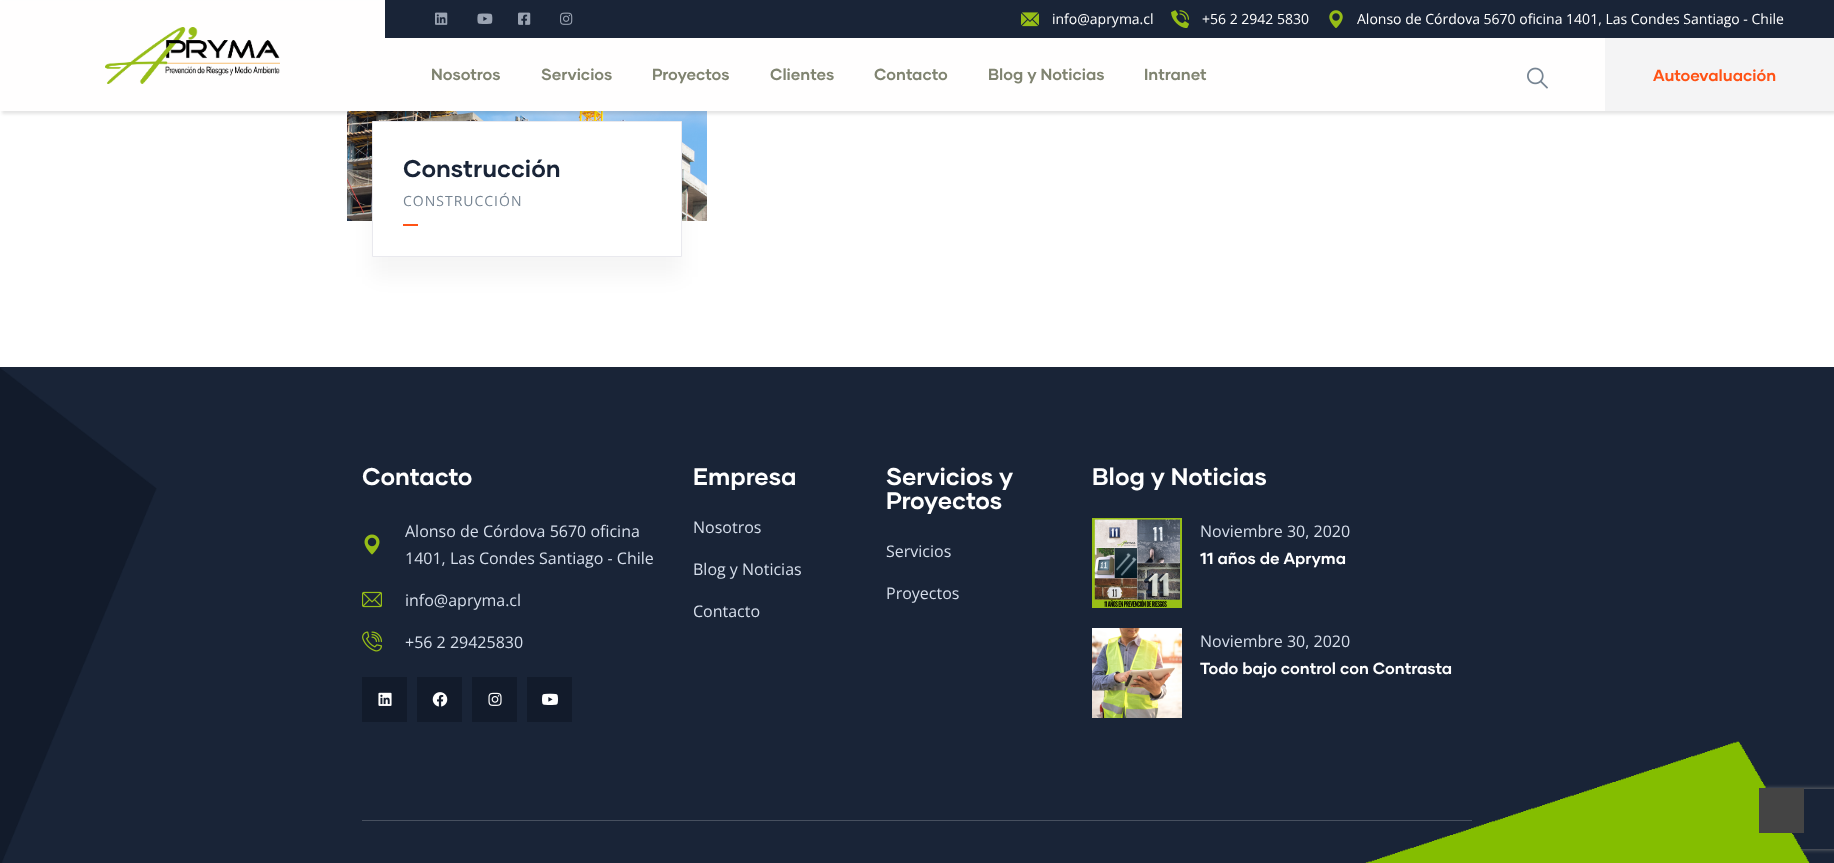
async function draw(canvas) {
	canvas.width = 1834;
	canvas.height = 863;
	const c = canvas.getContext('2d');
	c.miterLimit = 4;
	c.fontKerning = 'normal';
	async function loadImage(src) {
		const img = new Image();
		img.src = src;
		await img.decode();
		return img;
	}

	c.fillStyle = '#fff';
	c.fillRect(0, 0, 1834, 863);
	c.drawImage(await loadImage('img10.png'), 347, 111, 360, 110);
	c.fillStyle = '#0000001a';
	c.filter = 'blur(1.5px)';
	c.beginPath();
	c.rect(2, 3, 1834, 111);
	c.fill();
	c.filter = 'none';
	c.fillStyle = '#0000000a';
	c.filter = 'blur(10px)';
	c.beginPath();
	c.rect(372, 141, 310, 136);
	c.fill();
	c.filter = 'none';
	c.fillStyle = '#fffefe';
	c.fillRect(0, 1, 1605, 110);
	c.drawImage(await loadImage('img1.png'), 105, 27, 175, 57);
	c.fillStyle = '#192437';
	c.fillRect(385, 0, 1449, 38);
	c.drawImage(await loadImage('img2.png'), 435, 12, 13, 13);
	c.drawImage(await loadImage('img3.png'), 477, 13, 16, 11);
	c.drawImage(await loadImage('img4.png'), 518, 12, 13, 13);
	c.drawImage(await loadImage('img5.png'), 560, 12, 13, 13);
	c.drawImage(await loadImage('img6.png'), 1021, 12, 18, 15);
	c.font = '14px Open Sans';
	c.fillStyle = '#fff';
	c.fillText('info@apryma.cl', 1052, 24);
	c.drawImage(await loadImage('img7.png'), 1171, 10, 18, 18);
	c.fillText('+56 2 2942 5830', 1202, 24);
	c.drawImage(await loadImage('img8.png'), 1329, 10, 14, 18);
	c.fillText('Alonso de Córdova 5670 oficina 1401, Las Condes Santiago - Chile', 1357, 24);
	c.font = 'bold 16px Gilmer';
	c.fillStyle = '#808471';
	for (const [text, x, y] of [
		['Nosotros', 431, 80],
		['Servicios', 541, 80],
		['Proyectos', 652, 80],
		['Clientes', 770, 80],
		['Contacto', 874, 80],
		['Blog y Noticias', 988, 80],
		['Intranet', 1144, 80],
	]) {
		c.fillText(text, x, y);
	}
	c.drawImage(await loadImage('img9.png'), 1527, 67, 21, 22);
	c.fillStyle = '#f4f4f5';
	c.fillRect(1605, 38, 229, 73);
	c.fillStyle = '#ff5316';
	c.fillText('Autoevaluación', 1653, 81);
	c.fillStyle = '#fff';
	c.beginPath();
	c.rect(372.5, 121.5, 309, 135);
	c.fill();
	c.strokeStyle = '#e9e9ee';
	c.stroke();
	c.font = 'bold 24px Gilmer';
	c.fillStyle = '#192437';
	c.fillText('Construcción', 403, 177);
	c.letterSpacing = '1px';
	c.font = '14px Open Sans';
	c.fillStyle = '#768492';
	c.fillText('CONSTRUCCIÓN', 403, 206);
	c.fillStyle = '#ff5316';
	c.fillRect(403, 224, 15, 2);
	c.fillStyle = '#192437';
	c.fillRect(0, 367, 1834, 496);
	c.drawImage(await loadImage('img11.png'), 0, 368, 157, 495);
	c.letterSpacing = '0px';
	c.font = 'bold 24px Gilmer';
	c.fillStyle = '#fff';
	c.fillText('Contacto', 362, 485);
	c.drawImage(await loadImage('img12.png'), 364, 534, 16, 21);
	c.font = '16px Open Sans';
	c.fillStyle = '#d6deeb';
	c.fillText('Alonso de Córdova 5670 oficina', 405, 537);
	c.fillText('1401, Las Condes Santiago - Chile', 405, 564);
	c.drawImage(await loadImage('img13.png'), 362, 591, 20, 17);
	c.fillText('info@apryma.cl', 405, 606);
	c.drawImage(await loadImage('img14.png'), 362, 631, 20, 21);
	c.fillText('+56 2 29425830', 405, 648);
	c.fillStyle = '#121b2b';
	c.fillRect(362, 677, 45, 45);
	c.drawImage(await loadImage('img15.png'), 378, 692, 14, 14);
	c.fillRect(417, 677, 45, 45);
	c.drawImage(await loadImage('img16.png'), 432, 692, 16, 15);
	c.fillRect(472, 677, 45, 45);
	c.drawImage(await loadImage('img17.png'), 488, 692, 14, 14);
	c.fillRect(527, 677, 45, 45);
	c.drawImage(await loadImage('img18.png'), 542, 693, 16, 12);
	c.font = 'bold 24px Gilmer';
	c.fillStyle = '#fff';
	c.fillText('Empresa', 693, 485);
	c.font = '16px Open Sans';
	c.fillStyle = '#d6deeb';
	for (const [text, x, y] of [
		['Nosotros', 693, 533],
		['Blog y Noticias', 693, 575],
		['Contacto', 693, 617],
	]) {
		c.fillText(text, x, y);
	}
	c.font = 'bold 24px Gilmer';
	c.fillStyle = '#fff';
	c.fillText('Servicios y', 886, 485);
	c.fillText('Proyectos', 886, 509);
	c.font = '16px Open Sans';
	c.fillStyle = '#d6deeb';
	c.fillText('Servicios', 886, 557);
	c.fillText('Proyectos', 886, 599);
	c.font = 'bold 24px Gilmer';
	c.fillStyle = '#fff';
	c.fillText('Blog y Noticias', 1092, 485);
	c.drawImage(await loadImage('img19.png'), 1092, 518, 90, 90);
	c.font = '16px Open Sans';
	c.fillStyle = '#d6deeb';
	c.fillText('Noviembre 30, 2020', 1200, 537);
	c.font = 'bold 16px Gilmer';
	c.fillStyle = '#fff';
	c.fillText('11 años de Apryma', 1200, 564);
	c.drawImage(await loadImage('img20.png'), 1092, 628, 90, 90);
	c.font = '16px Open Sans';
	c.fillStyle = '#d6deeb';
	c.fillText('Noviembre 30, 2020', 1200, 647);
	c.font = 'bold 16px Gilmer';
	c.fillStyle = '#fff';
	c.fillText('Todo bajo control con Contrasta', 1200, 674);
	c.save();
	c.beginPath();
	c.moveTo(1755, 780);
	c.lineTo(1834, 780);
	c.lineTo(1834, 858);
	c.lineTo(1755, 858);
	c.closePath();
	c.moveTo(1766, 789);
	c.lineTo(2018, 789);
	c.bezierCurveTo(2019, 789, 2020, 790, 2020, 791);
	c.lineTo(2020, 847);
	c.bezierCurveTo(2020, 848, 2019, 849, 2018, 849);
	c.lineTo(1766, 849);
	c.bezierCurveTo(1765, 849, 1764, 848, 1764, 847);
	c.lineTo(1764, 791);
	c.bezierCurveTo(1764, 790, 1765, 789, 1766, 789);
	c.closePath();
	c.clip('evenodd');
	c.fillStyle = '#808080';
	c.filter = 'blur(2.5px)';
	c.beginPath();
	c.roundRect(1764, 789, 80, 60, 2);
	c.fill();
	c.filter = 'none';
	c.restore();
	c.drawImage(await loadImage('img21.png'), 1365, 741, 445, 122);
	c.fillStyle = '#47505f';
	c.fillRect(362, 820, 1110, 1);
	c.fillStyle = '#444';
	c.fillRect(1759, 788, 45, 45);
}

draw(document.querySelector('canvas'));
